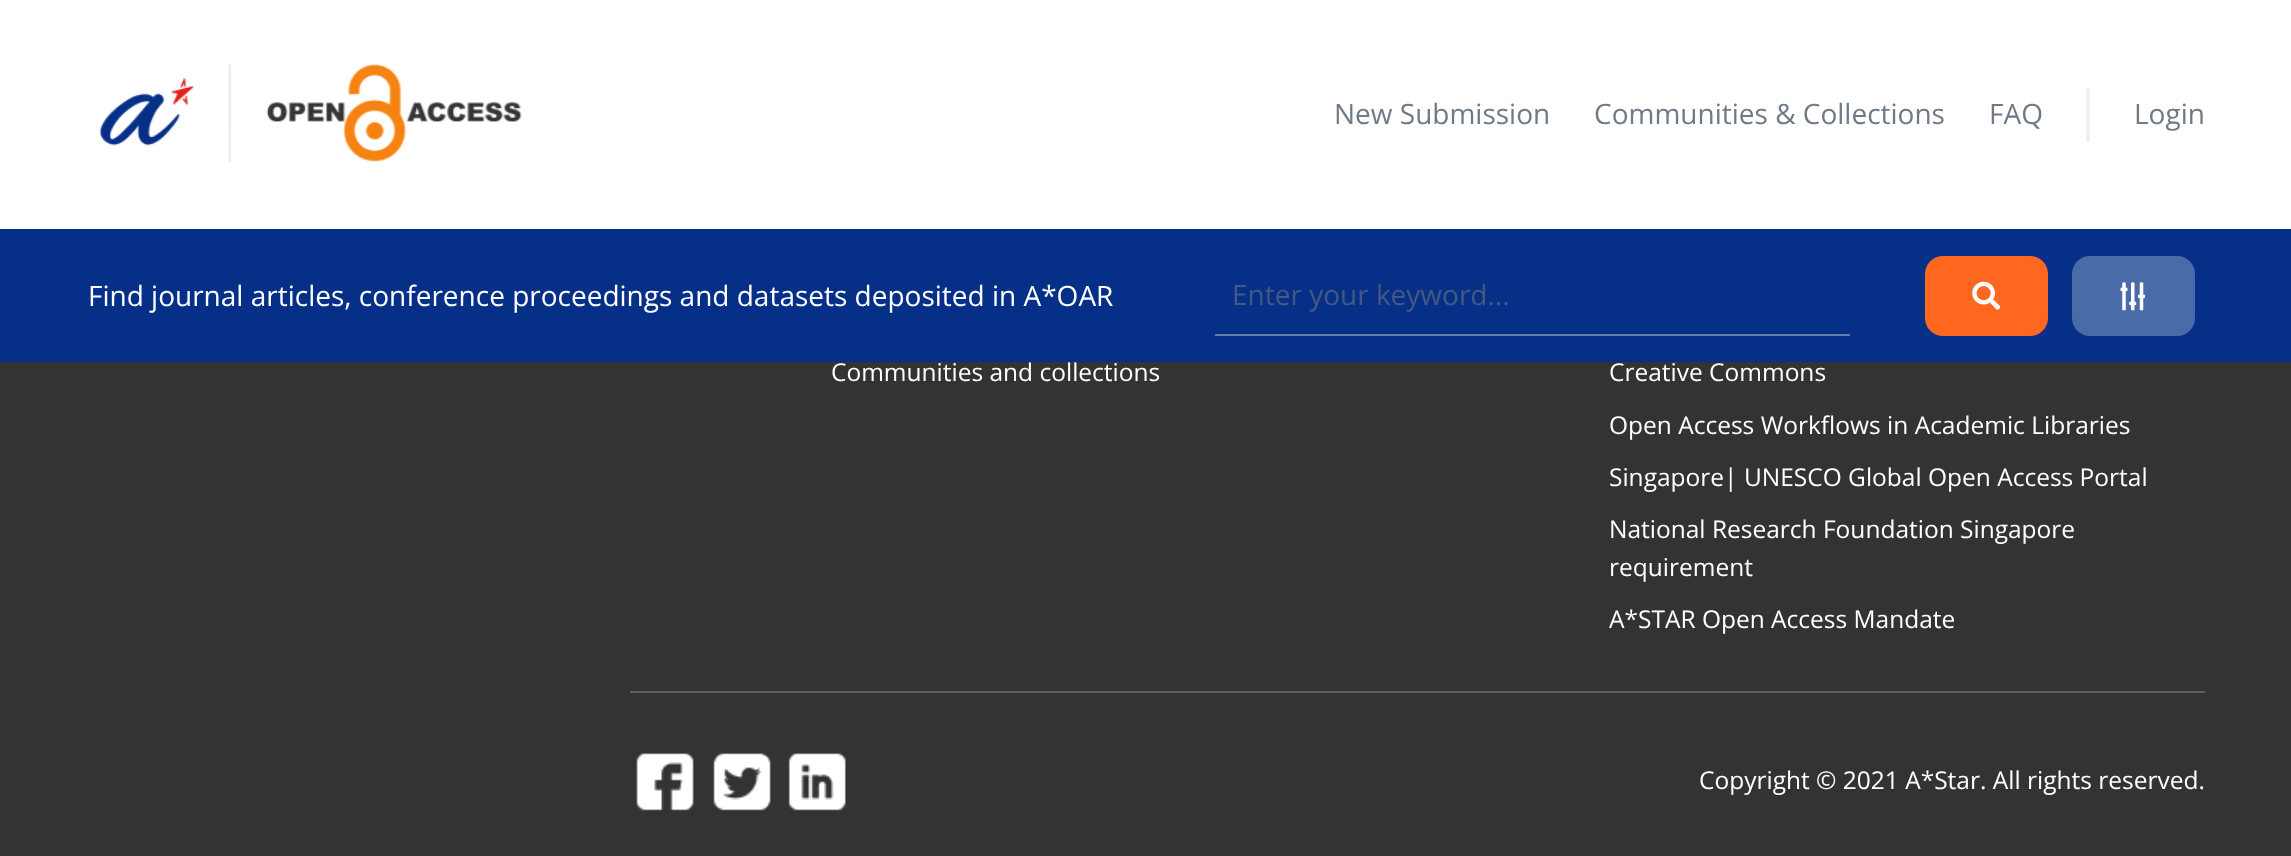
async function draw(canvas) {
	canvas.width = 2291;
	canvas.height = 856;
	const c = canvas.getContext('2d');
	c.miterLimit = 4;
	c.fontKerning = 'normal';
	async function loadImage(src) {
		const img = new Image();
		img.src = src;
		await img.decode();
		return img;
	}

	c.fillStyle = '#333';
	c.fillRect(0, 0, 2291, 856);
	c.fillStyle = '#fff';
	c.fillRect(0, 0, 2291, 229);
	c.drawImage(await loadImage('img1.png'), 99, 63, 423, 99);
	c.font = '28px Open Sans';
	c.fillStyle = '#6f7a89';
	for (const [text, x, y] of [
		['New Submission', 1334, 124],
		['Communities & Collections', 1594, 124],
		['FAQ', 1989, 124],
	]) {
		c.fillText(text, x, y);
	}
	c.fillStyle = '#f2f2f2';
	c.fillRect(2086, 88, 4, 54);
	c.fillStyle = '#6f7a89';
	c.fillText('Login', 2134, 124);
	c.fillStyle = '#062f87';
	c.fillRect(0, 229, 2291, 133);
	c.fillStyle = '#fff';
	c.fillText('Find journal articles, conference proceedings and datasets deposited in A*OAR', 88, 306);
	c.fillStyle = '#637dad';
	c.fillRect(1215, 334, 635, 2);
	c.fillStyle = '#435981';
	c.fillText('Enter your keyword...', 1232, 305);
	c.fillStyle = '#ff6720';
	c.beginPath();
	c.roundRect(1925, 256, 123, 80, 18);
	c.fill();
	c.drawImage(await loadImage('img2.png'), 1972, 281, 29, 29);
	c.fillStyle = '#496ba8';
	c.beginPath();
	c.roundRect(2072, 256, 123, 80, 18);
	c.fill();
	c.drawImage(await loadImage('img3.png'), 2120, 282, 25, 29);
	c.font = '24.5px Open Sans';
	c.fillStyle = '#fff';
	for (const [text, x, y] of [
		['Communities and collections', 831, 381],
		['Creative Commons', 1609, 381],
		['Open Access Workflows in Academic Libraries', 1609, 434],
		['Singapore| UNESCO Global Open Access Portal', 1609, 486],
		['National Research Foundation Singapore', 1609, 538],
		['requirement', 1609, 576],
		['A*STAR Open Access Mandate', 1609, 628],
	]) {
		c.fillText(text, x, y);
	}
	c.fillStyle = '#5c5c5c';
	c.fillRect(630, 691, 1575, 2);
	c.drawImage(await loadImage('img4.png'), 636, 753, 58, 58);
	c.drawImage(await loadImage('img5.png'), 713, 753, 58, 58);
	c.drawImage(await loadImage('img6.png'), 788, 753, 58, 58);
	c.fillStyle = '#fff';
	c.fillText('Copyright © 2021 A*Star. All rights reserved.', 1699, 789);
}

draw(document.querySelector('canvas'));
